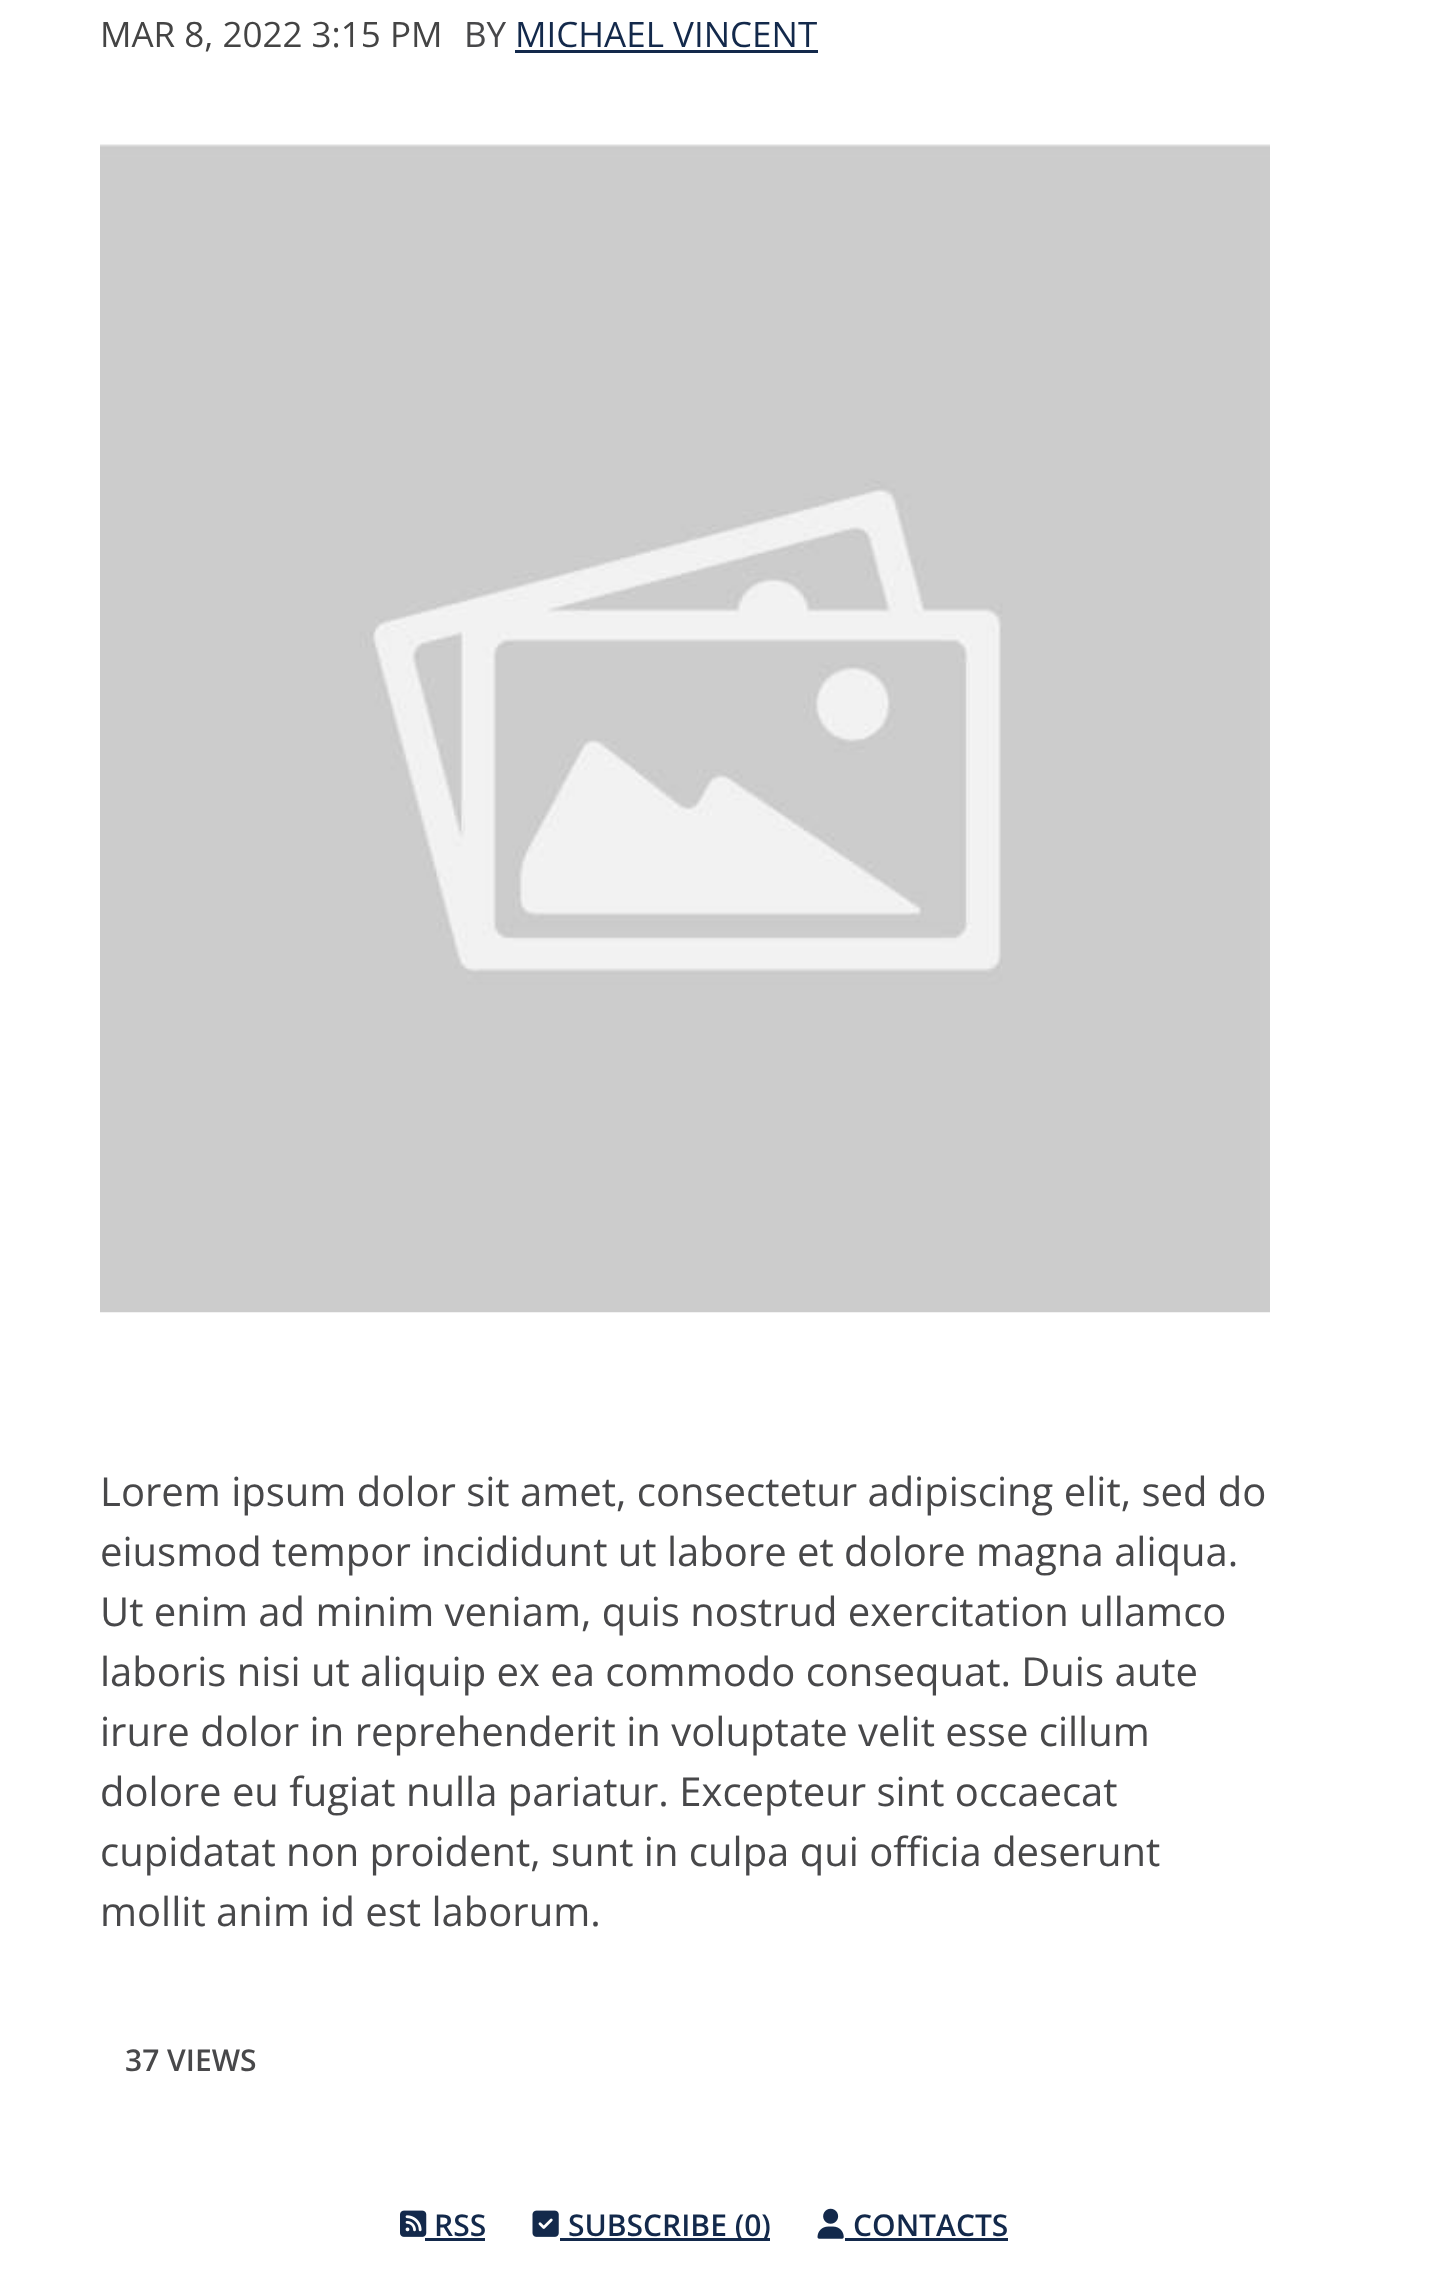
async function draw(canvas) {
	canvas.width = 1444;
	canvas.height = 2279;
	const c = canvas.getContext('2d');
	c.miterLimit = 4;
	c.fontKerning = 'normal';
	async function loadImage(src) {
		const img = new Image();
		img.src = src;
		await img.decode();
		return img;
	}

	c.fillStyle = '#fff';
	c.fillRect(0, 0, 1444, 2279);
	c.font = '35px Open Sans';
	c.fillStyle = '#444';
	c.fillText('MAR 8, 2022 3:15 PM', 100, 47);
	c.fillStyle = '#48484a';
	c.fillText('BY', 464, 47);
	c.fillStyle = '#13294b';
	c.fillText('MICHAEL VINCENT', 515, 47);
	c.fillRect(515, 50, 303, 3);
	c.drawImage(await loadImage('img1.png'), 100, 144, 1170, 1169);
	c.font = '40px Open Sans';
	c.fillStyle = '#48484a';
	for (const [text, x, y] of [
		['Lorem ipsum dolor sit amet, consectetur adipiscing elit, sed do', 100, 1506],
		['eiusmod tempor incididunt ut labore et dolore magna aliqua.', 100, 1566],
		['Ut enim ad minim veniam, quis nostrud exercitation ullamco', 100, 1626],
		['laboris nisi ut aliquip ex ea commodo consequat. Duis aute', 100, 1686],
		['irure dolor in reprehenderit in voluptate velit esse cillum', 100, 1746],
		['dolore eu fugiat nulla pariatur. Excepteur sint occaecat', 100, 1806],
		['cupidatat non proident, sunt in culpa qui officia deserunt', 100, 1866],
		['mollit anim id est laborum.', 100, 1926],
	]) {
		c.fillText(text, x, y);
	}
	c.font = '600 30px Open Sans';
	c.fillText('37 VIEWS', 125, 2071);
	c.drawImage(await loadImage('img2.png'), 400, 2210, 27, 27);
	c.fillStyle = '#13294b';
	c.fillText('RSS', 434, 2236);
	c.fillRect(425, 2238, 60, 3);
	c.drawImage(await loadImage('img3.png'), 532, 2210, 27, 27);
	c.fillRect(560, 2238, 210, 3);
	c.fillText('SUBSCRIBE (0)', 568, 2236);
	c.drawImage(await loadImage('img4.png'), 817, 2208, 27, 31);
	c.fillText('CONTACTS', 853, 2236);
	c.fillRect(845, 2238, 163, 3);
}

draw(document.querySelector('canvas'));
